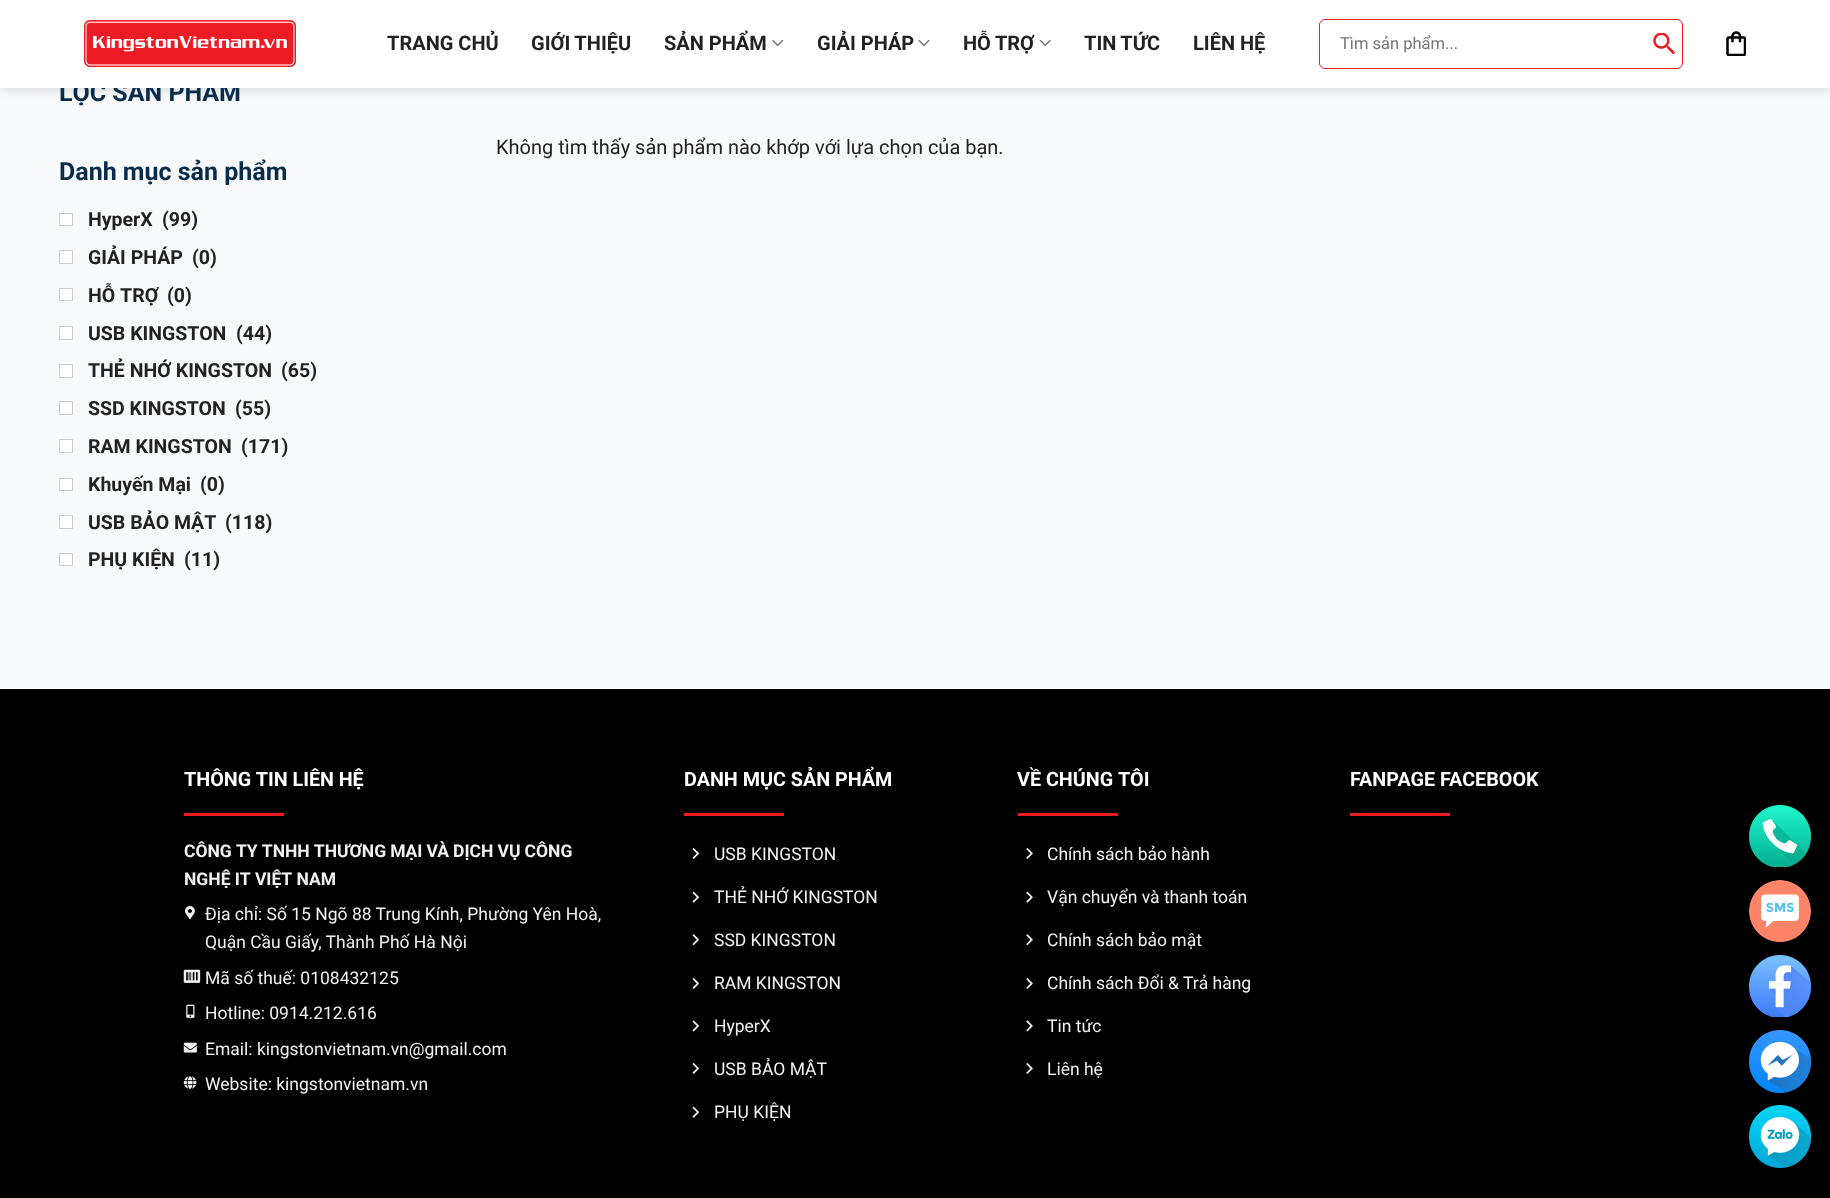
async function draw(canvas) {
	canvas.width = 1830;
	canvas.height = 1198;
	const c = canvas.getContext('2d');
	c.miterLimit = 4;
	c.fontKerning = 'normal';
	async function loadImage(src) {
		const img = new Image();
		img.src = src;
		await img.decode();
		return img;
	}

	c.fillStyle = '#f8f9fa';
	c.fillRect(0, 0, 1830, 1198);
	c.fillStyle = '#00000026';
	c.filter = 'blur(6px)';
	c.beginPath();
	c.rect(1, 1, 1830, 88);
	c.fill();
	c.filter = 'none';
	c.font = 'bold 25px Roboto';
	c.fillStyle = '#092c4c';
	c.fillText('LỌC SẢN PHẨM', 59, 101);
	c.fillStyle = '#fff';
	c.fillRect(0, 0, 1830, 88);
	c.drawImage(await loadImage('img1.png'), 84, 20, 212, 47);
	c.font = 'bold 20px Roboto';
	c.fillStyle = '#222';
	c.fillText('TRANG CHỦ', 387, 50);
	c.wordSpacing = '-1px';
	c.fillText('GIỚI THIỆU', 531, 50);
	c.wordSpacing = '0px';
	c.fillText('SẢN PHẨM', 664, 50);
	c.drawImage(await loadImage('img2.png'), 772, 39, 12, 8);
	c.fillText('GIẢI PHÁP', 817, 50);
	c.drawImage(await loadImage('img3.png'), 918, 39, 12, 8);
	c.wordSpacing = '-1px';
	c.fillText('HỖ TRỢ', 963, 50);
	c.drawImage(await loadImage('img4.png'), 1039, 39, 12, 8);
	c.fillText('TIN TỨC', 1084, 50);
	c.wordSpacing = '0px';
	c.fillText('LIÊN HỆ', 1193, 50);
	c.beginPath();
	c.roundRect(1319.5, 19.5, 363, 49, 5.5);
	c.strokeStyle = '#ed1a20';
	c.stroke();
	c.font = '16.5px Roboto';
	c.fillStyle = '#757575';
	c.fillText('Tìm sản phẩm...', 1340, 49);
	c.drawImage(await loadImage('img5.png'), 1653, 33, 22, 22);
	c.drawImage(await loadImage('img6.png'), 1726, 31, 20, 25);
	c.font = 'bold 25px Roboto';
	c.fillStyle = '#092c4c';
	c.fillText('Danh mục sản phẩm', 59, 180);
	c.fillStyle = '#fff';
	c.beginPath();
	c.rect(59.5, 213.5, 13, 12);
	c.fill();
	c.strokeStyle = '#ccc';
	c.stroke();
	c.font = 'bold 19.5px Roboto';
	c.fillStyle = '#222';
	c.fillText('HyperX', 88, 226);
	c.fillText('(99)', 162, 226);
	c.fillStyle = '#fff';
	c.beginPath();
	c.rect(59.5, 250.5, 13, 13);
	c.fill();
	c.stroke();
	c.fillStyle = '#222';
	c.fillText('GIẢI PHÁP', 88, 264);
	c.fillText('(0)', 192, 264);
	c.fillStyle = '#fff';
	c.beginPath();
	c.rect(59.5, 288.5, 13, 12);
	c.fill();
	c.stroke();
	c.fillStyle = '#222';
	c.fillText('HỖ TRỢ', 88, 302);
	c.fillText('(0)', 167, 302);
	c.fillStyle = '#fff';
	c.beginPath();
	c.rect(59.5, 326.5, 13, 13);
	c.fill();
	c.stroke();
	c.fillStyle = '#222';
	c.fillText('USB KINGSTON', 88, 340);
	c.fillText('(44)', 236, 340);
	c.fillStyle = '#fff';
	c.beginPath();
	c.rect(59.5, 364.5, 13, 13);
	c.fill();
	c.stroke();
	c.fillStyle = '#222';
	c.fillText('THẺ NHỚ KINGSTON', 88, 377);
	c.fillText('(65)', 281, 377);
	c.fillStyle = '#fff';
	c.beginPath();
	c.rect(59.5, 401.5, 13, 13);
	c.fill();
	c.stroke();
	c.fillStyle = '#222';
	c.fillText('SSD KINGSTON', 88, 415);
	c.fillText('(55)', 235, 415);
	c.fillStyle = '#fff';
	c.beginPath();
	c.rect(59.5, 439.5, 13, 13);
	c.fill();
	c.stroke();
	c.fillStyle = '#222';
	c.fillText('RAM KINGSTON', 88, 453);
	c.fillText('(171)', 241, 453);
	c.fillStyle = '#fff';
	c.beginPath();
	c.rect(59.5, 478.5, 13, 12);
	c.fill();
	c.stroke();
	c.fillStyle = '#222';
	c.fillText('Khuyến Mại', 88, 491);
	c.fillText('(0)', 200, 491);
	c.fillStyle = '#fff';
	c.beginPath();
	c.rect(59.5, 515.5, 13, 13);
	c.fill();
	c.stroke();
	c.fillStyle = '#222';
	c.fillText('USB BẢO MẬT', 88, 529);
	c.fillText('(118)', 225, 529);
	c.fillStyle = '#fff';
	c.beginPath();
	c.rect(59.5, 553.5, 13, 12);
	c.fill();
	c.stroke();
	c.fillStyle = '#222';
	c.fillText('PHỤ KIỆN', 88, 566);
	c.fillText('(11)', 184, 566);
	c.font = '20px Roboto';
	c.fillText('Không tìm thấy sản phẩm nào khớp với lựa chọn của bạn.', 496, 154);
	c.fillStyle = '#000';
	c.fillRect(0, 689, 1830, 509);
	c.wordSpacing = '-0.25px';
	c.font = 'bold 19.75px Roboto';
	c.fillStyle = '#fff';
	c.fillText('THÔNG TIN LIÊN HỆ', 184, 786);
	c.fillStyle = '#ed1a20';
	c.fillRect(184, 813, 100, 3);
	c.font = 'bold 17.5px Roboto';
	c.fillStyle = '#f1f1f1';
	c.fillText('CÔNG TY TNHH THƯƠNG MẠI VÀ DỊCH VỤ CÔNG', 184, 857);
	c.wordSpacing = '0px';
	c.fillText('NGHỆ IT VIỆT NAM', 184, 885);
	c.drawImage(await loadImage('img7.png'), 185, 906, 10, 14);
	c.font = '17.5px Roboto';
	c.fillText('Địa chỉ: Số 15 Ngõ 88 Trung Kính, Phường Yên Hoà,', 205, 920);
	c.fillText('Quận Cầu Giấy, Thành Phố Hà Nội', 205, 948);
	c.drawImage(await loadImage('img8.png'), 183, 969, 18, 14);
	c.fillText('Mã số thuế: 0108432125', 205, 984);
	c.drawImage(await loadImage('img9.png'), 186, 1004, 9, 14);
	c.fillText('Hotline: 0914.212.616', 205, 1019);
	c.drawImage(await loadImage('img10.png'), 183, 1042, 14, 11);
	c.fillText('Email: kingstonvietnam.vn@gmail.com', 205, 1055);
	c.drawImage(await loadImage('img11.png'), 183, 1076, 14, 13);
	c.fillText('Website: kingstonvietnam.vn', 205, 1090);
	c.font = 'bold 19.75px Roboto';
	c.fillStyle = '#fff';
	c.fillText('DANH MỤC SẢN PHẨM', 684, 786);
	c.fillStyle = '#ed1a20';
	c.fillRect(684, 813, 100, 3);
	c.drawImage(await loadImage('img12.png'), 692, 848, 7, 11);
	c.font = '17.5px Roboto';
	c.fillStyle = '#f1f1f1';
	c.fillText('USB KINGSTON', 714, 860);
	c.drawImage(await loadImage('img13.png'), 692, 891, 7, 12);
	c.fillText('THẺ NHỚ KINGSTON', 714, 903);
	c.drawImage(await loadImage('img14.png'), 692, 934, 7, 12);
	c.fillText('SSD KINGSTON', 714, 946);
	c.drawImage(await loadImage('img12.png'), 692, 978, 7, 11);
	c.fillText('RAM KINGSTON', 714, 989);
	c.drawImage(await loadImage('img15.png'), 692, 1020, 7, 12);
	c.fillText('HyperX', 714, 1032);
	c.drawImage(await loadImage('img12.png'), 692, 1063, 7, 11);
	c.fillText('USB BẢO MẬT', 714, 1075);
	c.drawImage(await loadImage('img13.png'), 692, 1106, 7, 12);
	c.fillText('PHỤ KIỆN', 714, 1118);
	c.font = 'bold 19.75px Roboto';
	c.fillStyle = '#fff';
	c.fillText('VỀ CHÚNG TÔI', 1017, 786);
	c.fillStyle = '#ed1a20';
	c.fillRect(1018, 813, 100, 3);
	c.drawImage(await loadImage('img16.png'), 1026, 848, 7, 11);
	c.font = '17.5px Roboto';
	c.fillStyle = '#f1f1f1';
	c.fillText('Chính sách bảo hành', 1047, 860);
	c.drawImage(await loadImage('img17.png'), 1026, 891, 7, 12);
	c.fillText('Vận chuyển và thanh toán', 1047, 903);
	c.drawImage(await loadImage('img18.png'), 1026, 934, 7, 12);
	c.fillText('Chính sách bảo mật', 1047, 946);
	c.drawImage(await loadImage('img16.png'), 1026, 978, 7, 11);
	c.fillText('Chính sách Đổi & Trả hàng', 1047, 989);
	c.drawImage(await loadImage('img19.png'), 1026, 1020, 7, 12);
	c.fillText('Tin tức', 1047, 1032);
	c.drawImage(await loadImage('img16.png'), 1026, 1063, 7, 11);
	c.fillText('Liên hệ', 1047, 1075);
	c.font = 'bold 19.75px Roboto';
	c.fillStyle = '#fff';
	c.fillText('FANPAGE FACEBOOK', 1350, 786);
	c.fillStyle = '#ed1a20';
	c.fillRect(1350, 813, 100, 3);
	c.drawImage(await loadImage('img20.png'), 1749, 805, 62, 62);
	c.drawImage(await loadImage('img21.png'), 1749, 880, 62, 62);
	c.drawImage(await loadImage('img22.png'), 1749, 955, 62, 63);
	c.drawImage(await loadImage('img23.png'), 1749, 1030, 62, 63);
	c.drawImage(await loadImage('img24.png'), 1749, 1105, 62, 63);
}

draw(document.querySelector('canvas'));
